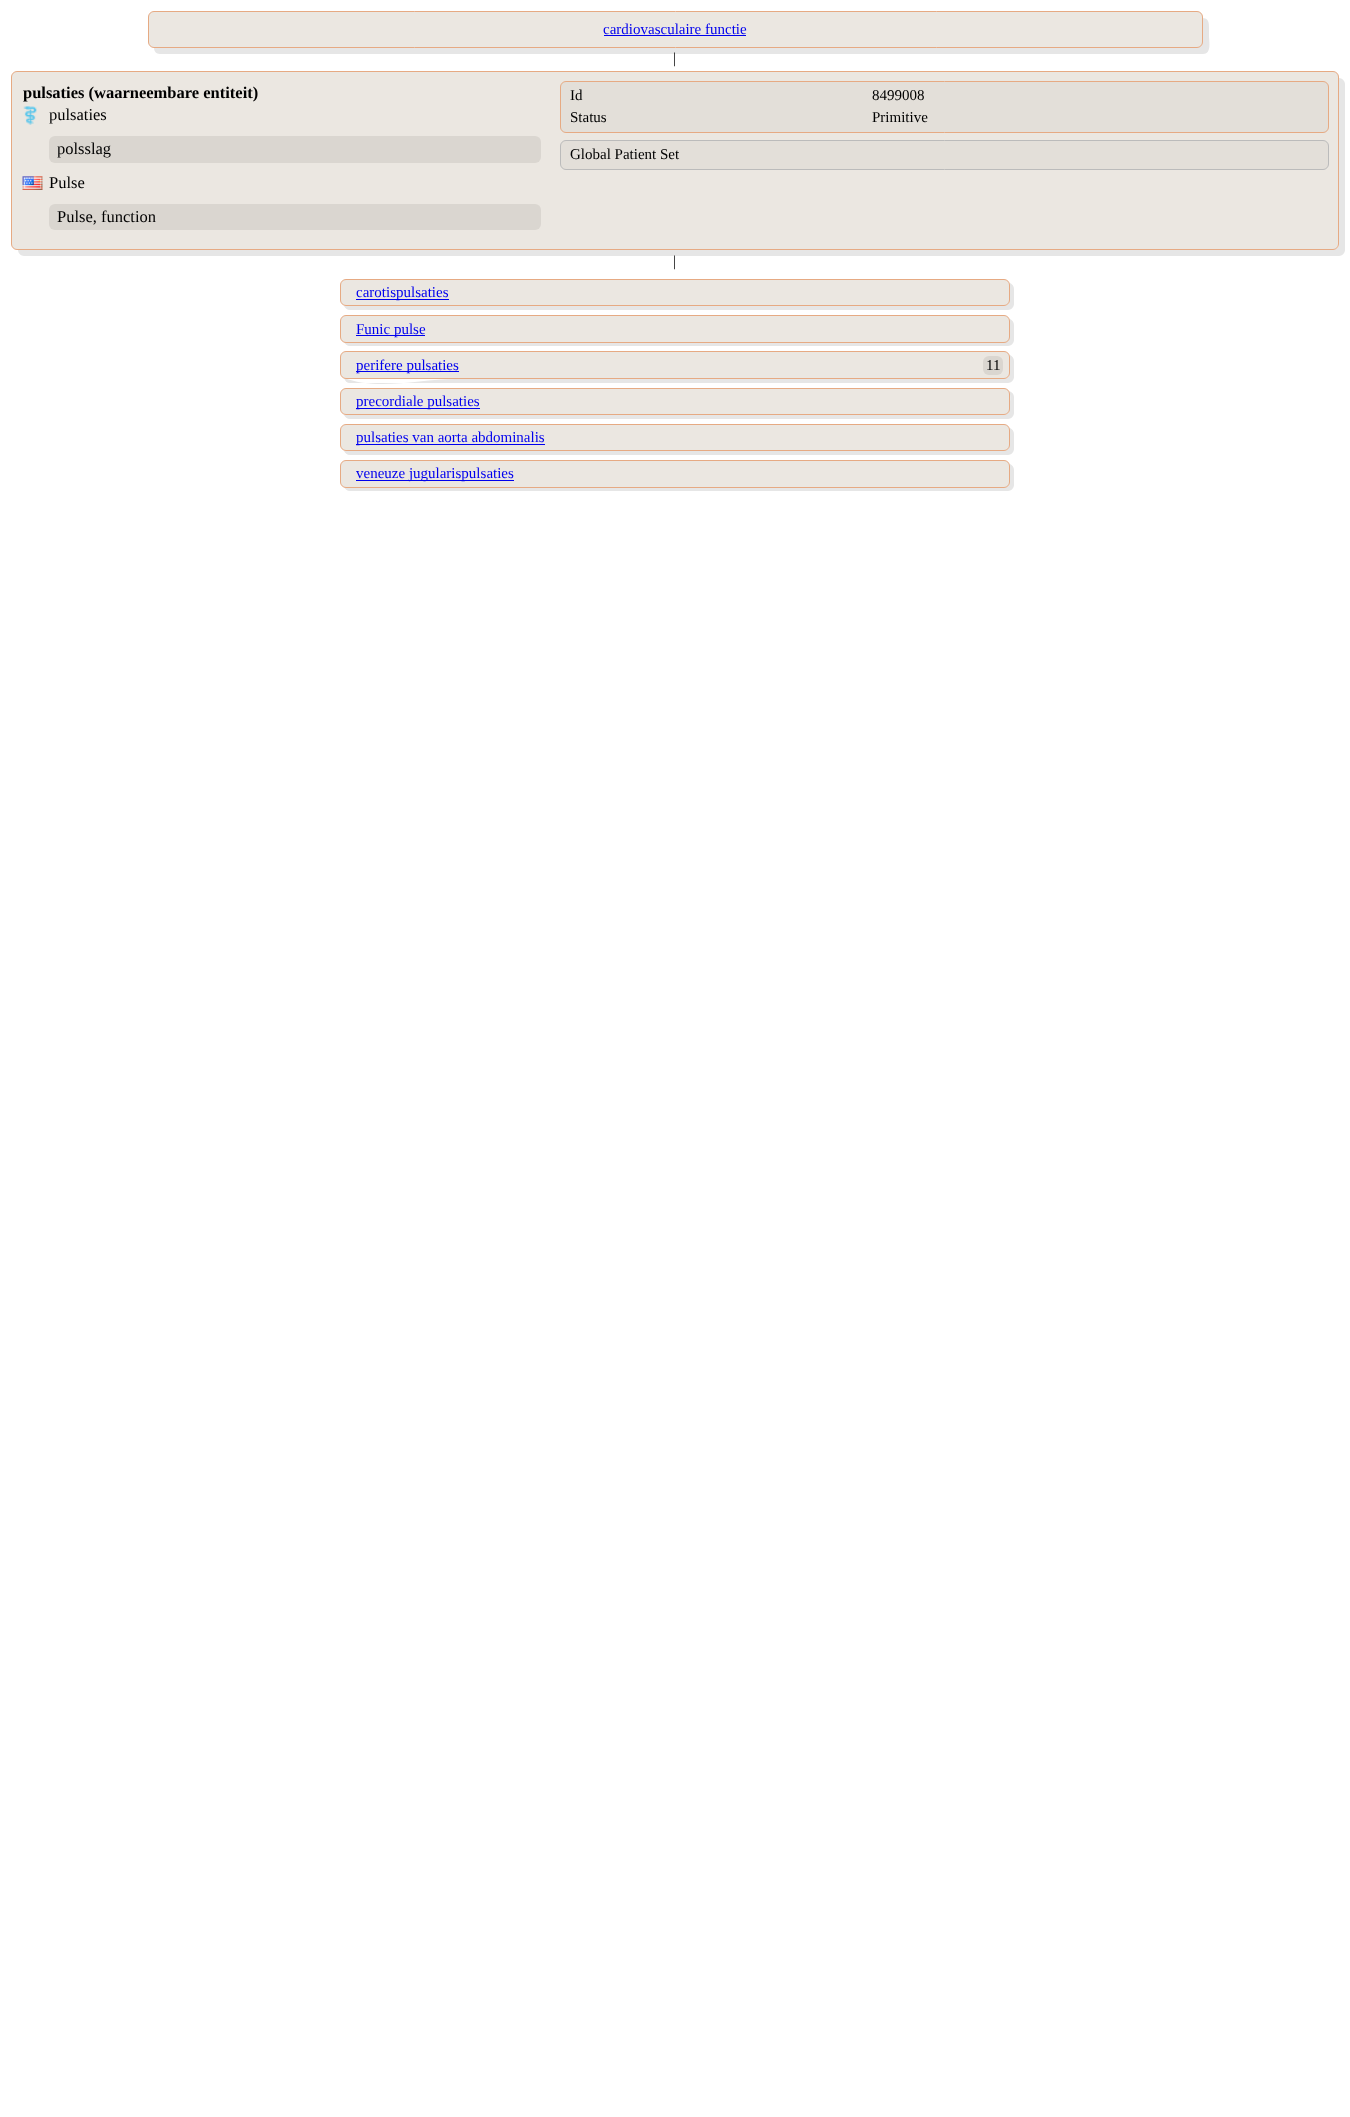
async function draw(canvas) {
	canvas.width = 1350;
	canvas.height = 2117;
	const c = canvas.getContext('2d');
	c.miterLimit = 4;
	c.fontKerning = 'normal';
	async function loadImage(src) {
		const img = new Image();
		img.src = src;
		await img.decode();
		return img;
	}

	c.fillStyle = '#fff';
	c.fillRect(0, 0, 1350, 2117);
	c.fillStyle = '#e6e6e6';
	c.beginPath();
	c.moveTo(154, 48);
	c.bezierCurveTo(154, 51, 156, 54, 160, 54);
	c.lineTo(1203, 54);
	c.bezierCurveTo(1212, 54, 1209, 41, 1209, 36);
	c.lineTo(1209, 28);
	c.bezierCurveTo(1209, 23, 1209, 18, 1202, 18);
	c.lineTo(1202, 41);
	c.bezierCurveTo(1202, 45, 1200, 48, 1196, 48);
	c.closePath();
	c.fill();
	c.fillStyle = '#ebe7e1';
	c.beginPath();
	c.roundRect(148.5, 11.5, 1054, 36, 5.5);
	c.fill();
	c.strokeStyle = '#e6aa83';
	c.stroke();
	c.font = '15px Liberation Serif';
	c.fillStyle = '#00e';
	c.fillText('cardiovasculaire functie', 603, 34);
	c.fillRect(604, 35, 142, 1);
	c.fillStyle = '#000';
	c.fillText('|', 673, 63);
	c.fillStyle = '#e6e6e6';
	c.beginPath();
	c.moveTo(18, 250);
	c.bezierCurveTo(18, 253, 21, 256, 24, 256);
	c.lineTo(1339, 256);
	c.bezierCurveTo(1342, 256, 1345, 253, 1345, 250);
	c.lineTo(1345, 84);
	c.bezierCurveTo(1345, 81, 1342, 78, 1339, 78);
	c.lineTo(1339, 244);
	c.bezierCurveTo(1339, 247, 1336, 250, 1332, 250);
	c.closePath();
	c.fill();
	c.fillStyle = '#ebe7e1';
	c.beginPath();
	c.roundRect(11.5, 71.5, 1327, 178, 5.5);
	c.fill();
	c.stroke();
	c.font = 'bold 16.5px Liberation Serif';
	c.fillStyle = '#000';
	c.fillText('pulsaties (waarneembare entiteit)', 23, 98);
	c.drawImage(await loadImage('img1.png'), 23, 106, 14, 19);
	c.font = '16.5px Liberation Serif';
	c.fillText('pulsaties', 49, 120);
	c.fillStyle = '#dad6d0';
	c.beginPath();
	c.roundRect(49, 136, 492, 27, 6);
	c.fill();
	c.fillStyle = '#000';
	c.fillText('polsslag', 57, 154);
	c.drawImage(await loadImage('img2.png'), 22, 176, 21, 14);
	c.fillText('Pulse', 49, 188);
	c.fillStyle = '#dad6d0';
	c.beginPath();
	c.roundRect(49, 204, 492, 26, 6);
	c.fill();
	c.fillStyle = '#000';
	c.fillText('Pulse, function', 57, 222);
	c.fillStyle = '#e3dfd9';
	c.beginPath();
	c.roundRect(560.5, 81.5, 768, 51, 5.5);
	c.fill();
	c.stroke();
	c.font = '15px Liberation Serif';
	c.fillStyle = '#000';
	for (const [text, x, y] of [
		['Id', 570, 100],
		['8499008', 872, 100],
		['Status', 570, 122],
		['Primitive', 872, 122],
	]) {
		c.fillText(text, x, y);
	}
	c.fillStyle = '#e3dfd9';
	c.beginPath();
	c.roundRect(560.5, 140.5, 768, 29, 5.5);
	c.fill();
	c.strokeStyle = '#bbb';
	c.stroke();
	c.fillStyle = '#000';
	c.fillText('Global Patient Set', 570, 159);
	c.fillText('|', 673, 266);
	c.fillStyle = '#e6e6e6';
	c.beginPath();
	c.moveTo(344, 306);
	c.bezierCurveTo(345, 308, 347, 310, 350, 310);
	c.lineTo(1008, 310);
	c.bezierCurveTo(1011, 310, 1014, 307, 1014, 304);
	c.lineTo(1014, 289);
	c.bezierCurveTo(1014, 286, 1012, 284, 1010, 283);
	c.lineTo(1010, 292);
	c.bezierCurveTo(1010, 297, 1011, 306, 1004, 306);
	c.closePath();
	c.fill();
	c.fillStyle = '#ebe7e1';
	c.beginPath();
	c.roundRect(340.5, 279.5, 669, 26, 5.5);
	c.fill();
	c.strokeStyle = '#e6aa83';
	c.stroke();
	c.fillStyle = '#00e';
	c.fillRect(356, 299, 93, 1);
	c.fillText('carotispulsaties', 356, 297);
	c.fillStyle = '#e6e6e6';
	c.beginPath();
	c.moveTo(344, 342);
	c.bezierCurveTo(345, 344, 347, 346, 350, 346);
	c.lineTo(1008, 346);
	c.bezierCurveTo(1011, 346, 1014, 343, 1014, 340);
	c.lineTo(1014, 325);
	c.bezierCurveTo(1014, 322, 1012, 320, 1010, 319);
	c.lineTo(1010, 329);
	c.bezierCurveTo(1010, 334, 1011, 342, 1004, 342);
	c.closePath();
	c.fill();
	c.fillStyle = '#ebe7e1';
	c.beginPath();
	c.roundRect(340.5, 315.5, 669, 27, 5.5);
	c.fill();
	c.stroke();
	c.fillStyle = '#00e';
	c.fillRect(356, 335, 69, 1);
	c.fillText('Funic pulse', 356, 334);
	c.fillStyle = '#e6e6e6';
	c.beginPath();
	c.moveTo(344, 378);
	c.bezierCurveTo(345, 381, 347, 383, 350, 383);
	c.lineTo(1008, 383);
	c.bezierCurveTo(1011, 383, 1014, 380, 1014, 377);
	c.lineTo(1014, 361);
	c.bezierCurveTo(1014, 358, 1012, 356, 1010, 355);
	c.lineTo(1010, 365);
	c.bezierCurveTo(1010, 370, 1011, 379, 1004, 379);
	c.lineTo(456, 379);
	c.bezierCurveTo(419, 379, 379, 391, 344, 378);
	c.closePath();
	c.fill();
	c.fillStyle = '#ebe7e1';
	c.beginPath();
	c.roundRect(340.5, 351.5, 669, 27, 5.5);
	c.fill();
	c.stroke();
	c.fillStyle = '#00e';
	c.fillRect(356, 371, 103, 1);
	c.fillText('perifere pulsaties', 356, 370);
	c.fillStyle = '#dad6d0';
	c.beginPath();
	c.roundRect(983, 356, 20, 19, 6);
	c.fill();
	c.fillStyle = '#000';
	c.fillText('11', 986, 370);
	c.fillStyle = '#e6e6e6';
	c.beginPath();
	c.moveTo(344, 415);
	c.bezierCurveTo(345, 417, 347, 419, 350, 419);
	c.lineTo(1008, 419);
	c.bezierCurveTo(1011, 419, 1014, 416, 1014, 413);
	c.lineTo(1014, 397);
	c.bezierCurveTo(1014, 394, 1012, 392, 1009, 391);
	c.bezierCurveTo(1011, 395, 1010, 400, 1010, 404);
	c.bezierCurveTo(1010, 408, 1010, 415, 1004, 415);
	c.closePath();
	c.fill();
	c.fillStyle = '#ebe7e1';
	c.beginPath();
	c.roundRect(340.5, 388.5, 669, 26, 5.5);
	c.fill();
	c.stroke();
	c.fillStyle = '#00e';
	c.fillRect(356, 408, 124, 1);
	c.fillText('precordiale pulsaties', 356, 406);
	c.fillStyle = '#e6e6e6';
	c.beginPath();
	c.moveTo(344, 451);
	c.bezierCurveTo(345, 453, 347, 455, 350, 455);
	c.lineTo(1008, 455);
	c.bezierCurveTo(1011, 455, 1014, 452, 1014, 449);
	c.lineTo(1014, 434);
	c.bezierCurveTo(1014, 431, 1012, 429, 1010, 428);
	c.lineTo(1010, 438);
	c.bezierCurveTo(1010, 442, 1011, 451, 1004, 451);
	c.closePath();
	c.fill();
	c.fillStyle = '#ebe7e1';
	c.beginPath();
	c.roundRect(340.5, 424.5, 669, 26, 5.5);
	c.fill();
	c.stroke();
	c.fillStyle = '#00e';
	c.fillRect(356, 444, 189, 1);
	c.fillText('pulsaties van aorta abdominalis', 356, 442);
	c.fillStyle = '#e6e6e6';
	c.beginPath();
	c.moveTo(344, 487);
	c.bezierCurveTo(345, 489, 347, 491, 350, 491);
	c.lineTo(1008, 491);
	c.bezierCurveTo(1011, 491, 1014, 488, 1014, 485);
	c.lineTo(1014, 470);
	c.bezierCurveTo(1014, 467, 1012, 465, 1010, 464);
	c.lineTo(1010, 474);
	c.bezierCurveTo(1010, 479, 1011, 487, 1004, 488);
	c.closePath();
	c.fill();
	c.fillStyle = '#ebe7e1';
	c.beginPath();
	c.roundRect(340.5, 460.5, 669, 27, 5.5);
	c.fill();
	c.stroke();
	c.fillStyle = '#00e';
	c.fillRect(356, 480, 158, 1);
	c.fillText('veneuze jugularispulsaties', 356, 478);
}

draw(document.querySelector('canvas'));
